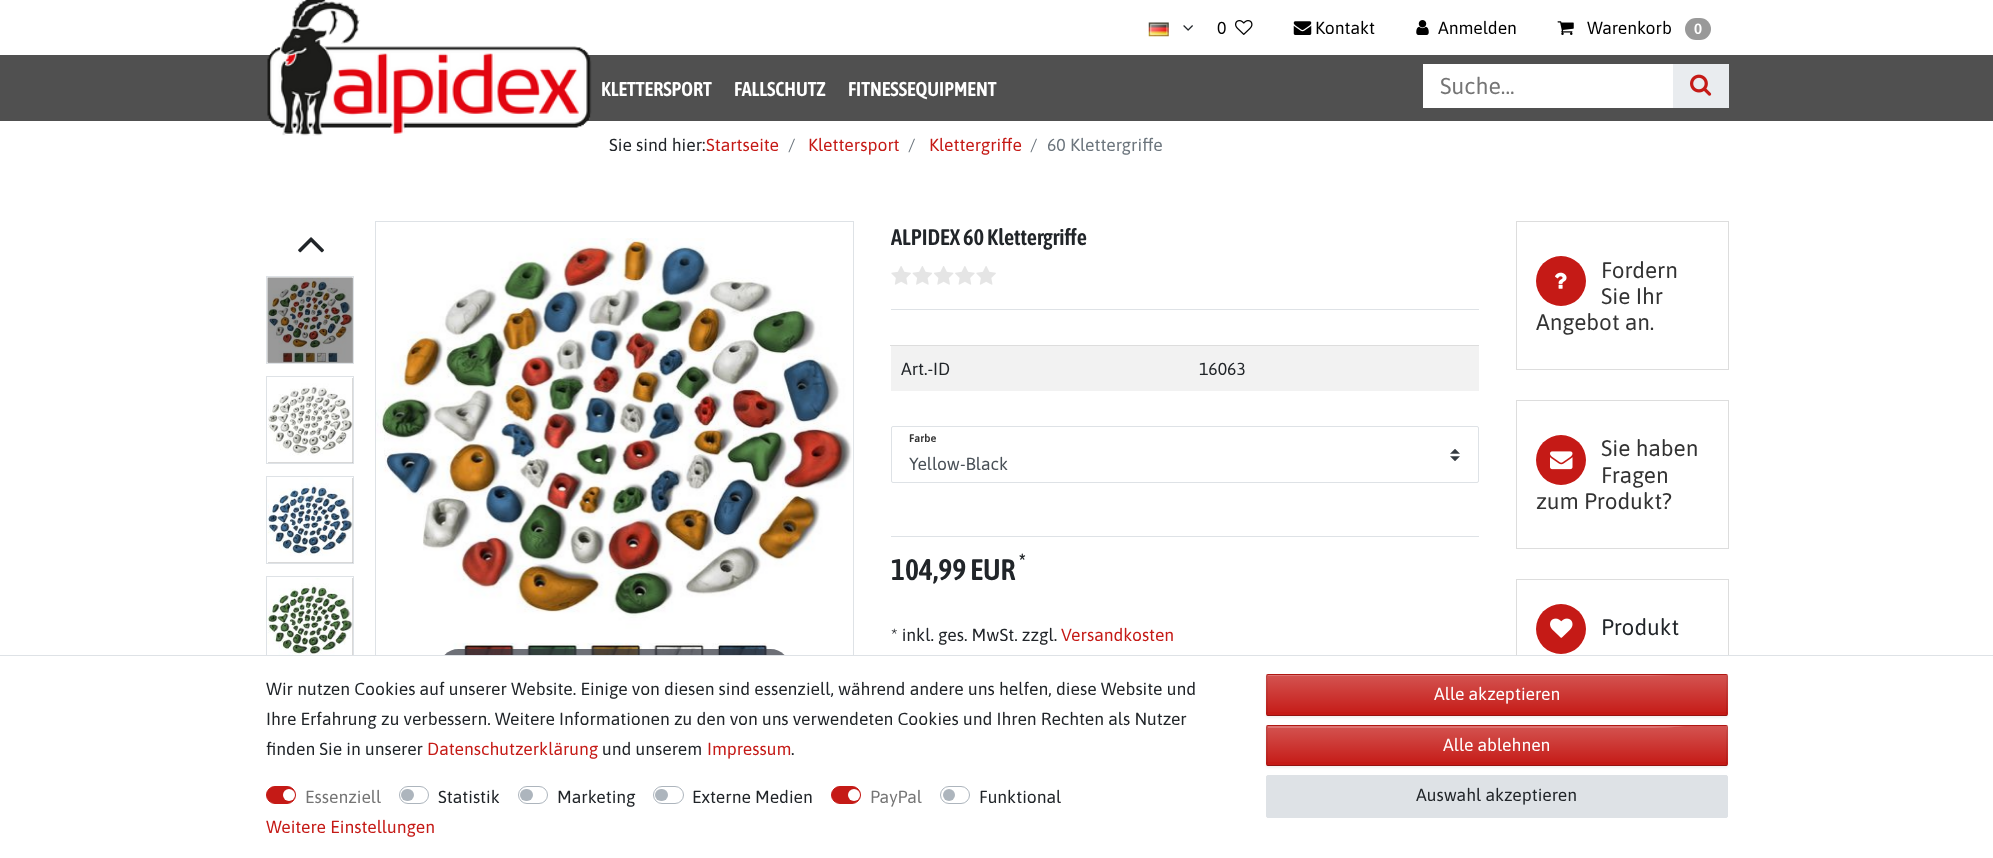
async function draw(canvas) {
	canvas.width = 1993;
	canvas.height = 858;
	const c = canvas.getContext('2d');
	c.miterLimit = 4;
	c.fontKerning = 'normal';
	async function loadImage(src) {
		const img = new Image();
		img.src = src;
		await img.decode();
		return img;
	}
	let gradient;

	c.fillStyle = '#fff';
	c.fillRect(0, 0, 1993, 858);
	c.drawImage(await loadImage('img1.png'), 1148, 22, 21, 15);
	c.drawImage(await loadImage('img2.png'), 1183, 25, 10, 6);
	c.font = '17.5px Asap';
	c.fillStyle = '#000';
	c.fillText('0', 1217, 34);
	c.drawImage(await loadImage('img3.png'), 1235, 20, 18, 15);
	c.drawImage(await loadImage('img4.png'), 1293, 21, 19, 14);
	c.fillText('Kontakt', 1315, 34);
	c.drawImage(await loadImage('img5.png'), 1416, 20, 13, 15);
	c.fillText('Anmelden', 1438, 34);
	c.drawImage(await loadImage('img6.png'), 1557, 21, 17, 14);
	c.fillText('Warenkorb', 1587, 34);
	c.fillStyle = '#999';
	c.beginPath();
	c.roundRect(1685, 18, 26, 22, 11);
	c.fill();
	c.font = '600 15px Asap';
	c.fillStyle = '#fff';
	c.fillText('0', 1694, 34);
	c.fillStyle = '#505050';
	c.fillRect(0, 55, 1993, 66);
	c.drawImage(await loadImage('img7.png'), 267, 0, 325, 136);
	c.font = '600 20px Asap Condensed';
	c.fillStyle = '#fff';
	for (const [text, x, y] of [
		['KLETTERSPORT', 601, 96],
		['FALLSCHUTZ', 734, 96],
		['FITNESSEQUIPMENT', 848, 96],
	]) {
		c.fillText(text, x, y);
	}
	c.fillRect(1423, 64, 250, 44);
	c.font = '23px Asap';
	c.fillStyle = '#757575';
	c.fillText('Suche...', 1440, 94);
	c.fillStyle = '#e9ecef';
	c.fillRect(1673, 64, 56, 44);
	c.drawImage(await loadImage('img8.png'), 1690, 74, 22, 22);
	c.font = '17.5px Asap';
	c.fillStyle = '#212529';
	c.fillText('Sie sind hier:', 609, 151);
	c.fillStyle = '#c51a16';
	c.fillText('Startseite', 706, 151);
	c.fillStyle = '#6c757d';
	c.fillText('/', 788, 151);
	c.fillStyle = '#c51a16';
	c.fillText('Klettersport', 808, 151);
	c.fillStyle = '#6c757d';
	c.fillText('/', 908, 151);
	c.fillStyle = '#c51a16';
	c.fillText('Klettergriffe', 929, 151);
	c.fillStyle = '#6c757d';
	c.fillText('/', 1030, 151);
	c.fillText('60 Klettergriffe', 1047, 151);
	c.drawImage(await loadImage('img9.png'), 298, 237, 26, 16);
	c.strokeStyle = '#dee2e6';
	c.strokeRect(266.5, 276.5, 87, 87);
	c.fillStyle = '#0000004d';
	c.filter = 'blur(0.5px)';
	c.beginPath();
	c.rect(268, 278, 85, 85);
	c.fill();
	c.filter = 'none';
	c.drawImage(await loadImage('img10.png'), 267, 277, 86, 86);
	c.strokeRect(266.5, 376.5, 87, 87);
	c.filter = 'blur(0.5px)';
	c.beginPath();
	c.rect(268, 378, 85, 85);
	c.fill();
	c.filter = 'none';
	c.drawImage(await loadImage('img11.png'), 268, 378, 85, 85);
	c.strokeRect(266.5, 476.5, 87, 87);
	c.filter = 'blur(0.5px)';
	c.beginPath();
	c.rect(268, 478, 85, 85);
	c.fill();
	c.filter = 'none';
	c.drawImage(await loadImage('img12.png'), 267, 478, 86, 85);
	c.strokeRect(266.5, 576.5, 87, 87);
	c.filter = 'blur(0.5px)';
	c.beginPath();
	c.rect(268, 578, 85, 85);
	c.fill();
	c.filter = 'none';
	c.drawImage(await loadImage('img13.png'), 267, 578, 86, 77);
	c.strokeRect(375.5, 221.5, 478, 499);
	c.drawImage(await loadImage('img14.png'), 376, 238, 476, 417);
	c.fillStyle = '#31333db3';
	c.beginPath();
	c.roundRect(439, 649, 351, 39, 19.5);
	c.fill();
	c.font = '600 22.5px Asap Condensed';
	c.fillStyle = '#212529';
	c.fillText('ALPIDEX 60 Klettergriffe', 891, 245);
	c.drawImage(await loadImage('img15.png'), 891, 266, 20, 19);
	c.drawImage(await loadImage('img16.png'), 912, 266, 20, 19);
	c.drawImage(await loadImage('img17.png'), 934, 266, 20, 19);
	c.drawImage(await loadImage('img18.png'), 955, 266, 20, 19);
	c.drawImage(await loadImage('img15.png'), 976, 266, 20, 19);
	c.fillStyle = '#dee2e6';
	c.fillRect(891, 309, 588, 1);
	c.fillStyle = '#f2f2f2';
	c.fillRect(891, 346, 588, 45);
	c.font = '17.5px Asap';
	c.fillStyle = '#212529';
	c.fillText('Art.-ID', 901, 375);
	c.fillStyle = '#ddd';
	c.fillRect(890, 345, 589, 1);
	c.fillStyle = '#212529';
	c.fillText('16063', 1199, 375);
	c.beginPath();
	c.roundRect(891.5, 426.5, 587, 56, 1.5);
	c.stroke();
	c.font = '600 11px Asap';
	c.fillStyle = '#333';
	c.fillText('Farbe', 909, 442);
	c.drawImage(await loadImage('img19.png'), 1450, 449, 10, 12);
	c.font = '17.5px Asap';
	c.fillStyle = '#495057';
	c.fillText('Yellow-Black', 909, 470);
	c.fillStyle = '#dee2e6';
	c.fillRect(891, 536, 588, 1);
	c.font = '600 22px Asap Condensed';
	c.fillStyle = '#212529';
	c.fillText('*', 1019, 569);
	c.font = '600 29.75px Asap Condensed';
	c.fillText('104,99 EUR', 891, 580);
	c.font = '17.5px Asap';
	c.fillText('* inkl. ges. MwSt. zzgl.', 891, 641);
	c.fillStyle = '#c51a16';
	c.fillText('Versandkosten', 1061, 641);
	c.strokeStyle = '#ddd';
	c.strokeRect(1516.5, 221.5, 212, 148);
	c.beginPath();
	c.arc(1561, 281, 25, 0, 2 * Math.PI);
	c.fill();
	c.drawImage(await loadImage('img20.png'), 1555, 272, 12, 17);
	c.font = '22.5px Asap';
	c.fillStyle = '#333';
	for (const [text, x, y] of [
		['Fordern', 1601, 278],
		['Sie Ihr', 1601, 304],
		['Angebot an.', 1536, 330],
	]) {
		c.fillText(text, x, y);
	}
	c.strokeRect(1516.5, 400.5, 212, 148);
	c.fillStyle = '#c51a16';
	c.beginPath();
	c.arc(1561, 460, 25, 0, 2 * Math.PI);
	c.fill();
	c.drawImage(await loadImage('img21.png'), 1550, 451, 23, 19);
	c.fillStyle = '#333';
	for (const [text, x, y] of [
		['Sie haben', 1601, 456],
		['Fragen', 1601, 483],
		['zum Produkt?', 1536, 509],
	]) {
		c.fillText(text, x, y);
	}
	c.strokeRect(1516.5, 579.5, 212, 121);
	c.fillStyle = '#c51a16';
	c.beginPath();
	c.arc(1561, 629, 25, 0, 2 * Math.PI);
	c.fill();
	c.drawImage(await loadImage('img22.png'), 1550, 618, 23, 20);
	c.fillStyle = '#212529';
	c.fillText('Produkt', 1601, 635);
	c.fillStyle = '#fff';
	c.fillRect(266, 656, 1463, 65);
	c.fillStyle = '#dee2e6';
	c.fillRect(0, 655, 1993, 1);
	c.font = '17.5px Asap';
	c.fillStyle = '#212529';
	for (const [text, x, y] of [
		['Wir nutzen Cookies auf unserer Website. Einige von diesen sind essenziell, während andere uns helfen, diese Website und', 266, 695],
		['Ihre Erfahrung zu verbessern. Weitere Informationen zu den von uns verwendeten Cookies und Ihren Rechten als Nutzer', 266, 725],
		['finden Sie in unserer', 266, 755],
	]) {
		c.fillText(text, x, y);
	}
	c.fillStyle = '#c51a16';
	c.fillText('Datenschutzerklärung', 427, 755);
	c.fillStyle = '#212529';
	c.fillText('und unserem', 602, 755);
	c.fillStyle = '#c51a16';
	c.fillText('Impressum', 707, 755);
	c.fillStyle = '#212529';
	c.fillText('.', 791, 755);
	c.fillStyle = '#c51a16';
	c.beginPath();
	c.roundRect(266.5, 786.5, 29, 17, 8.5);
	c.fill();
	c.strokeStyle = '#c51a16';
	c.stroke();
	c.fillStyle = '#fff';
	c.beginPath();
	c.arc(289, 795, 6, 0, 2 * Math.PI);
	c.fill();
	c.fillStyle = '#757575';
	c.fillText('Essenziell', 305, 803);
	c.beginPath();
	c.roundRect(399.5, 786.5, 29, 17, 8.5);
	c.strokeStyle = '#adb5bd';
	c.stroke();
	c.fillStyle = '#adb5bd';
	c.beginPath();
	c.roundRect(401, 789, 13, 12, 6);
	c.fill();
	c.fillStyle = '#212529';
	c.fillText('Statistik', 438, 803);
	c.beginPath();
	c.roundRect(518.5, 786.5, 29, 17, 8.5);
	c.stroke();
	c.fillStyle = '#adb5bd';
	c.beginPath();
	c.roundRect(520, 789, 13, 12, 6);
	c.fill();
	c.fillStyle = '#212529';
	c.fillText('Marketing', 557, 803);
	c.beginPath();
	c.roundRect(653.5, 786.5, 30, 17, 8.5);
	c.stroke();
	c.fillStyle = '#adb5bd';
	c.beginPath();
	c.roundRect(655, 789, 13, 12, 6);
	c.fill();
	c.fillStyle = '#212529';
	c.fillText('Externe Medien', 692, 803);
	c.fillStyle = '#c51a16';
	c.beginPath();
	c.roundRect(831.5, 786.5, 29, 17, 8.5);
	c.fill();
	c.strokeStyle = '#c51a16';
	c.stroke();
	c.fillStyle = '#fff';
	c.beginPath();
	c.arc(854, 795, 6, 0, 2 * Math.PI);
	c.fill();
	c.fillStyle = '#757575';
	c.fillText('PayPal', 870, 803);
	c.beginPath();
	c.roundRect(940.5, 786.5, 29, 17, 8.5);
	c.strokeStyle = '#adb5bd';
	c.stroke();
	c.fillStyle = '#adb5bd';
	c.beginPath();
	c.arc(949, 795, 6, 0, 2 * Math.PI);
	c.fill();
	c.fillStyle = '#212529';
	c.fillText('Funktional', 979, 803);
	c.fillStyle = '#c51a16';
	c.fillText('Weitere Einstellungen', 266, 833);
	c.fillStyle = '#0000000d';
	c.filter = 'blur(1px)';
	c.beginPath();
	c.roundRect(1266, 675, 462, 43, 2);
	c.fill();
	c.filter = 'none';
	c.fillStyle = '#c51a16';
	c.beginPath();
	c.roundRect(1266, 674, 462, 42, 2);
	c.fill();
	gradient = c.createLinearGradient(1497, 675, 1497, 715);
	gradient.addColorStop(0, '#ffffff40');
	gradient.addColorStop(1, '#ffffff00');
	c.fillStyle = gradient;
	c.fillRect(1266, 675, 462, 37);
	c.fillStyle = '#dc7573';
	c.beginPath();
	c.moveTo(1268, 676);
	c.lineTo(1268, 675);
	c.lineTo(1677, 675);
	c.lineTo(1649, 676);
	c.closePath();
	c.moveTo(1726, 675);
	c.lineTo(1726, 680);
	c.closePath();
	c.moveTo(1726, 713);
	c.lineTo(1726, 715);
	c.closePath();
	c.moveTo(1268, 715);
	c.lineTo(1268, 710);
	c.closePath();
	c.fill('evenodd');
	c.fillStyle = '#00000040';
	c.fillRect(1267, 715, 460, 1);
	c.beginPath();
	c.moveTo(1267, 715.5);
	c.lineTo(1267, 682);
	c.bezierCurveTo(1267, 679.5, 1265.5, 674.5, 1268, 674.5);
	c.lineTo(1726, 674.5);
	c.bezierCurveTo(1728, 674.5, 1727, 679.5, 1727, 682);
	c.lineTo(1726.5, 715.5);
	c.strokeStyle = '#0000001a';
	c.lineWidth = 1.2;
	c.stroke();
	c.fillStyle = '#fff';
	c.fillText('Alle akzeptieren', 1434, 700);
	c.fillStyle = '#0000000d';
	c.filter = 'blur(1px)';
	c.beginPath();
	c.roundRect(1266, 726, 462, 42, 2);
	c.fill();
	c.filter = 'none';
	c.fillStyle = '#c51a16';
	c.beginPath();
	c.roundRect(1266, 725, 462, 41, 2);
	c.fill();
	gradient = c.createLinearGradient(1497, 726, 1497, 765);
	gradient.addColorStop(0, '#ffffff40');
	gradient.addColorStop(1, '#ffffff00');
	c.fillStyle = gradient;
	c.fillRect(1266, 726, 462, 36);
	c.fillStyle = '#dc7472';
	c.beginPath();
	c.moveTo(1268, 728);
	c.lineTo(1268, 726);
	c.lineTo(1686, 726);
	c.bezierCurveTo(1677, 727, 1664, 728, 1649, 728);
	c.closePath();
	c.moveTo(1726, 726);
	c.lineTo(1726, 731);
	c.bezierCurveTo(1726, 730, 1727, 726, 1726, 726);
	c.closePath();
	c.moveTo(1726, 763);
	c.lineTo(1726, 765);
	c.closePath();
	c.fill('evenodd');
	c.fillStyle = '#00000040';
	c.fillRect(1267, 765, 460, 1);
	c.beginPath();
	c.moveTo(1267, 765.5);
	c.lineTo(1267, 733);
	c.bezierCurveTo(1267, 730.5, 1265.5, 725.5, 1268, 725.5);
	c.lineTo(1726, 725.5);
	c.bezierCurveTo(1728, 725.5, 1727, 730.5, 1727, 733);
	c.lineTo(1726.5, 765.5);
	c.stroke();
	c.fillStyle = '#fff';
	c.fillText('Alle ablehnen', 1443, 751);
	c.fillStyle = '#dee2e6';
	c.beginPath();
	c.roundRect(1266.5, 775.5, 461, 42, 1.5);
	c.fill();
	c.strokeStyle = '#dee2e6';
	c.lineWidth = 1;
	c.stroke();
	c.fillStyle = '#212529';
	c.fillText('Auswahl akzeptieren', 1416, 801);
}

draw(document.querySelector('canvas'));
